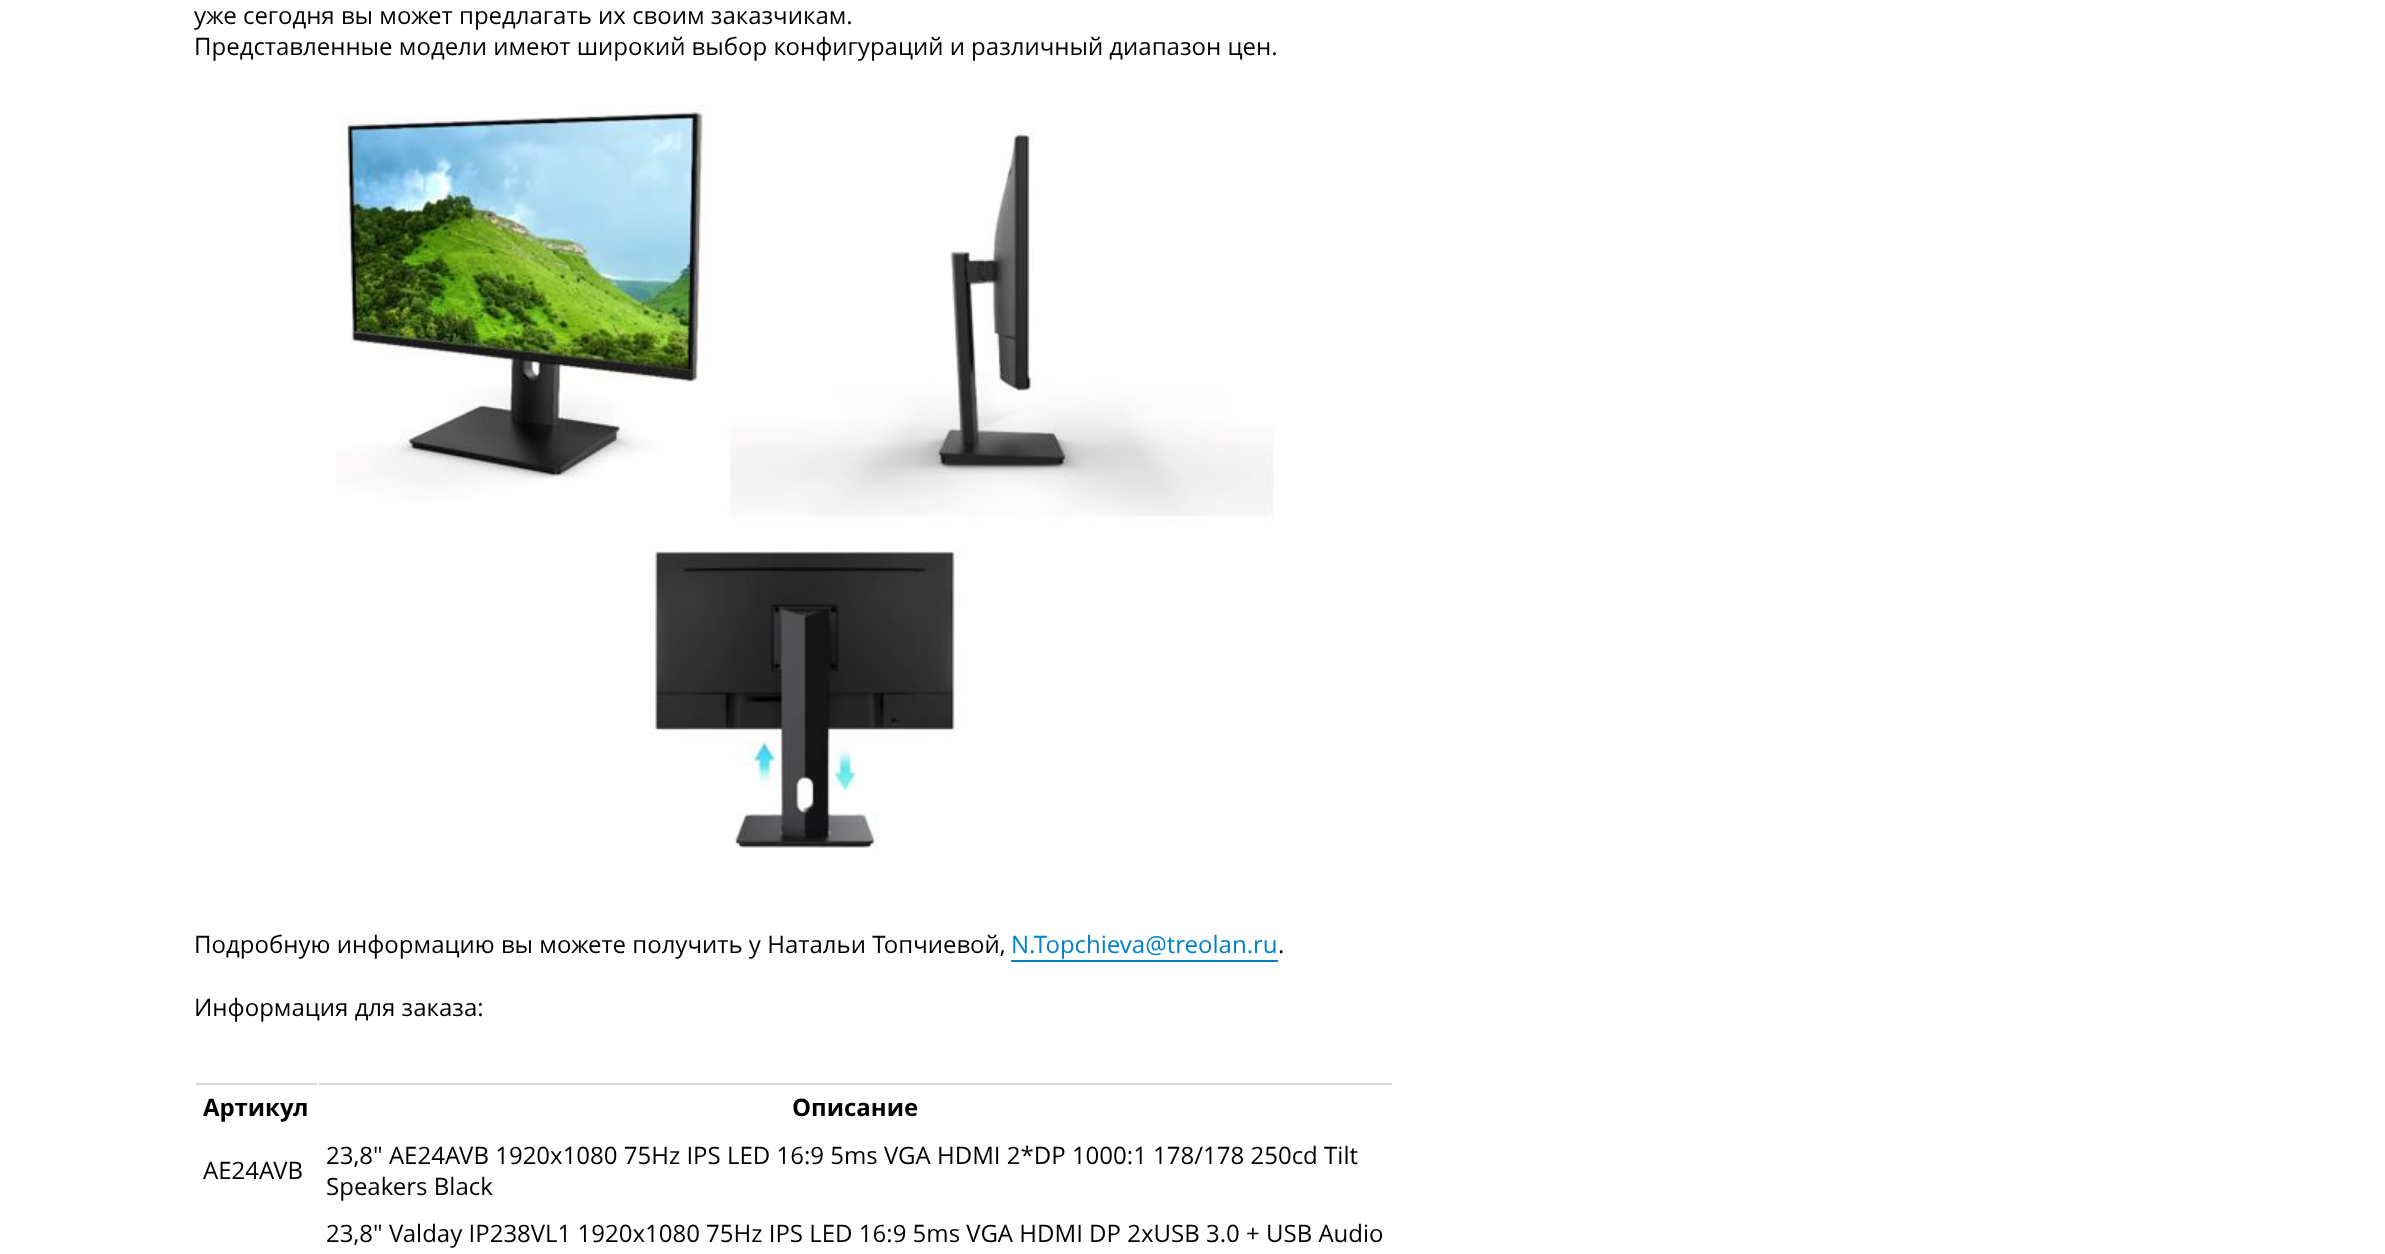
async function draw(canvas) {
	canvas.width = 2385;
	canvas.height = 1254;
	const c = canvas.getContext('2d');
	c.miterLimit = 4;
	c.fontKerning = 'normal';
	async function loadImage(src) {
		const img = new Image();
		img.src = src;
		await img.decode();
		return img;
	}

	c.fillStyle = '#fff';
	c.fillRect(0, 0, 2385, 1254);
	c.font = '24px Open Sans';
	c.fillStyle = '#000';
	c.fillText('уже сегодня вы может предлагать их своим заказчикам.', 194, 24);
	c.fillText('Представленные модели имеют широкий выбор конфигураций и различный диапазон цен.', 194, 55);
	c.drawImage(await loadImage('img1.png'), 336, 105, 938, 744);
	c.fillText('Подробную информацию вы можете получить у Натальи Топчиевой,', 194, 953);
	c.fillStyle = '#0081c7';
	c.fillText('N.Topchieva@treolan.ru', 1011, 953);
	c.fillRect(1011, 960, 267, 2);
	c.fillStyle = '#000';
	c.fillText('.', 1278, 953);
	c.fillText('Информация для заказа:', 194, 1016);
	for (const [x, y, w, h, color] of [
		[194, 1083, 1200, 2, '#d7d8d8'],
		[317, 1083, 2, 2, '#fff'],
		[194, 1083, 2, 2, '#fff'],
	]) {
		c.fillStyle = color;
		c.fillRect(x, y, w, h);
	}
	c.font = 'bold 24px Open Sans';
	c.fillStyle = '#000';
	c.fillText('Артикул', 203, 1116);
	c.fillStyle = '#fff';
	c.fillRect(1392, 1083, 2, 2);
	c.fillStyle = '#000';
	c.fillText('Описание', 792, 1116);
	c.font = '24px Open Sans';
	for (const [text, x, y] of [
		['AE24AVB', 203, 1179],
		['23,8" AE24AVB 1920x1080 75Hz IPS LED 16:9 5ms VGA HDMI 2*DP 1000:1 178/178 250cd Tilt', 326, 1164],
		['Speakers Black', 326, 1195],
		['23,8" Valday IP238VL1 1920x1080 75Hz IPS LED 16:9 5ms VGA HDMI DP 2xUSB 3.0 + USB Audio', 326, 1242],
	]) {
		c.fillText(text, x, y);
	}
}

draw(document.querySelector('canvas'));
